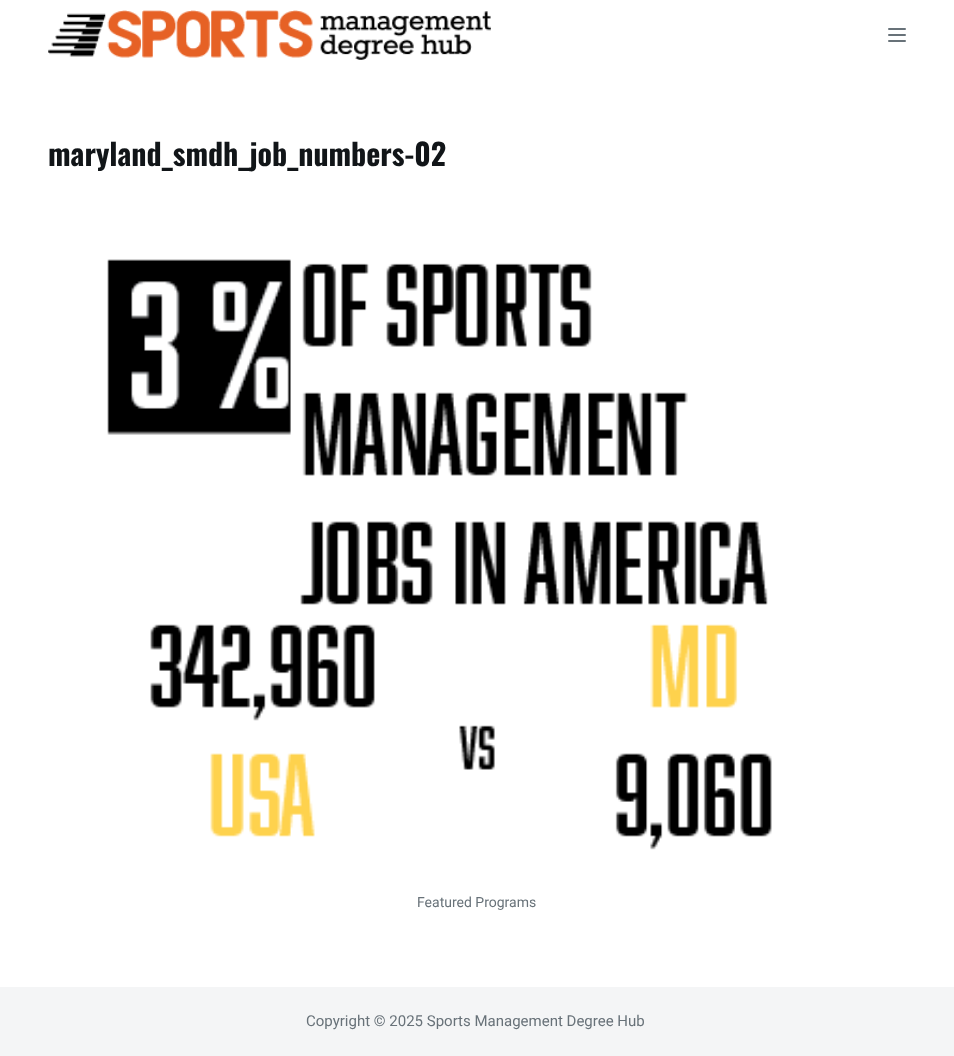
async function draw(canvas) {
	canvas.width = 954;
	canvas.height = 1056;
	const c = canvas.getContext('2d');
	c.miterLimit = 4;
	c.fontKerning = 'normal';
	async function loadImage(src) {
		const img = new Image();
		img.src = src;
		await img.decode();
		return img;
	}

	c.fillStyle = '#fff';
	c.fillRect(0, 0, 954, 1056);
	c.drawImage(await loadImage('img1.png'), 48, 10, 443, 50);
	c.fillStyle = '#687279';
	c.beginPath();
	c.roundRect(888, 28, 18, 2, 1);
	c.fill();
	c.beginPath();
	c.roundRect(888, 34, 18, 2, 1);
	c.fill();
	c.beginPath();
	c.roundRect(888, 40, 18, 2, 1);
	c.fill();
	c.font = 'bold 30px Oswald';
	c.fillStyle = '#111518';
	c.fillText('maryland_smdh_job_numbers-02', 48, 166);
	c.drawImage(await loadImage('img2.png'), 107, 259, 665, 591);
	c.font = '14px Roboto';
	c.fillStyle = '#687279';
	c.fillText('Featured Programs', 417, 907);
	c.fillStyle = '#f4f5f6';
	c.fillRect(0, 987, 954, 69);
	c.font = '15px Roboto';
	c.fillStyle = '#687279';
	c.fillText('Copyright © 2025 Sports Management Degree Hub', 306, 1026);
}

draw(document.querySelector('canvas'));
